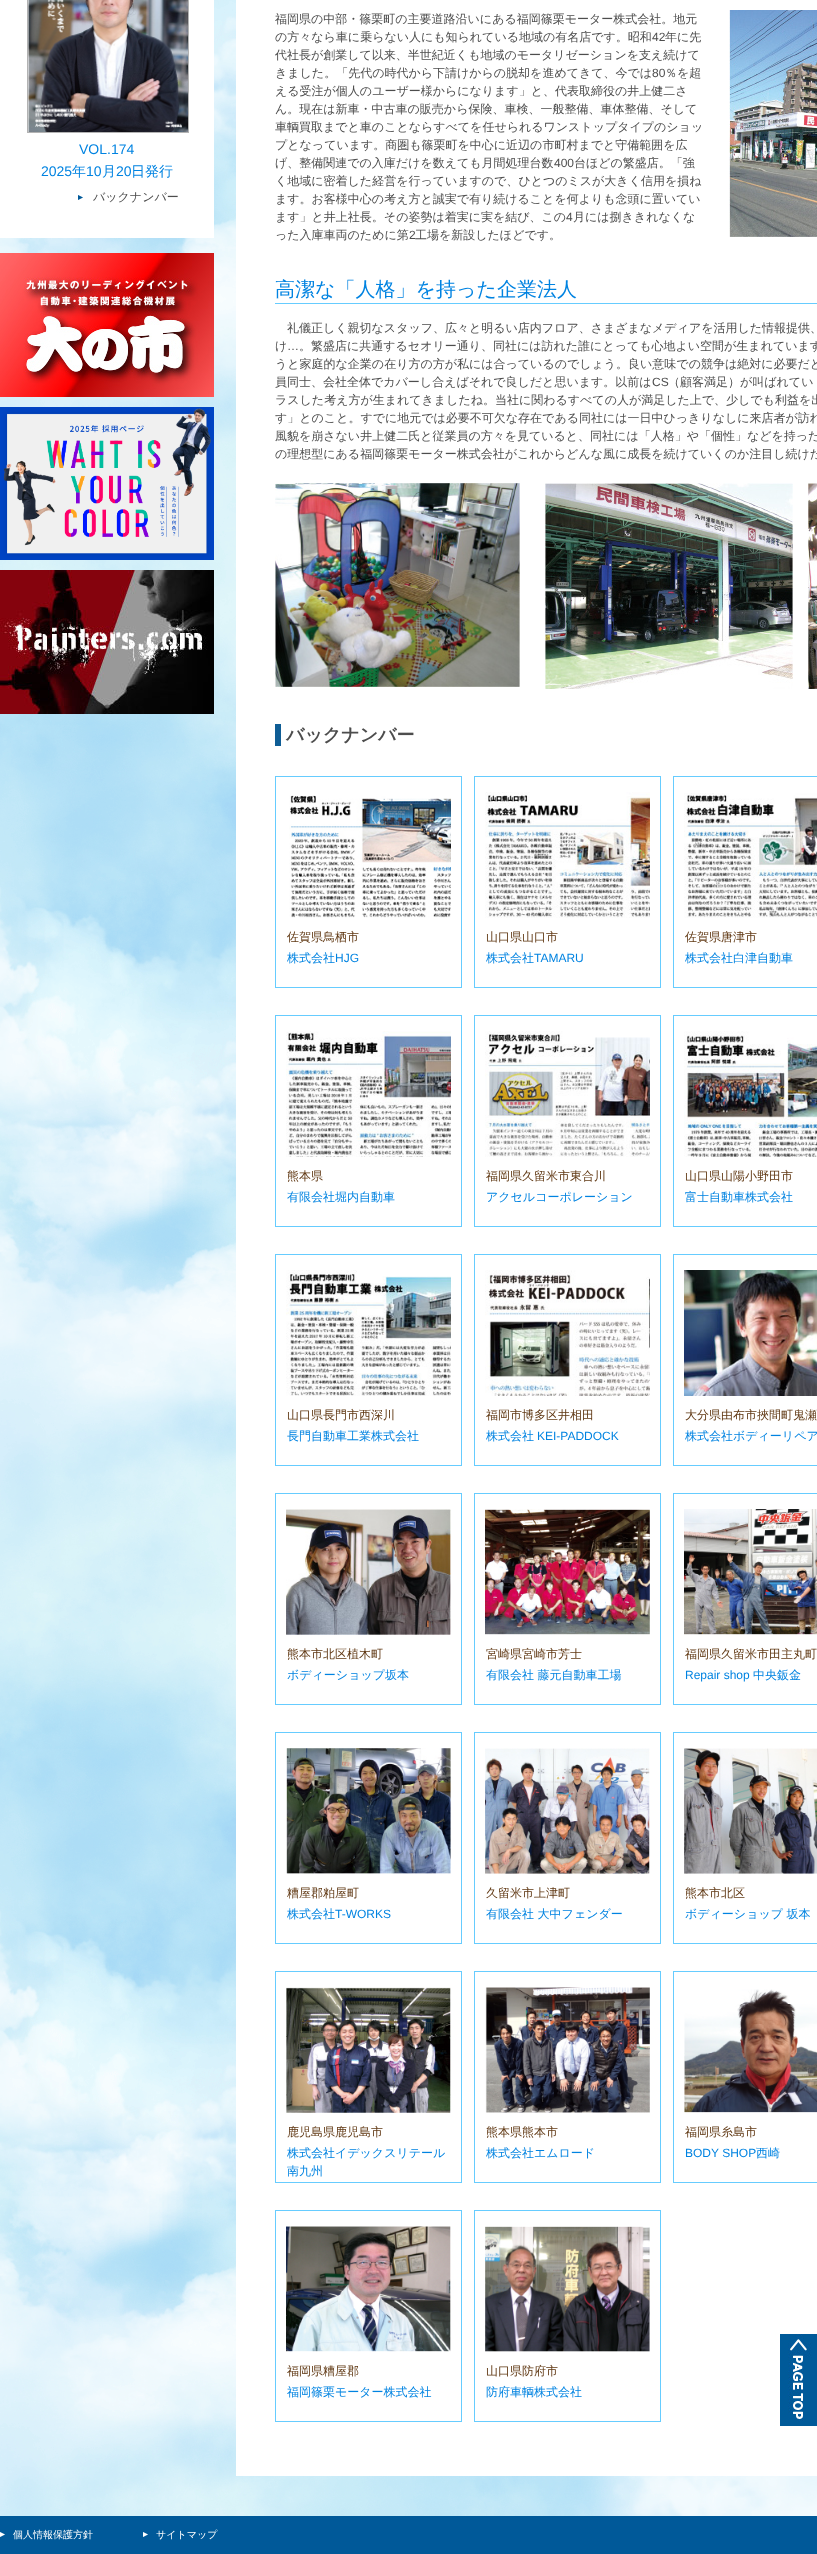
async function draw(canvas) {
	canvas.width = 817;
	canvas.height = 2554;
	const c = canvas.getContext('2d');
	c.miterLimit = 4;
	c.fontKerning = 'normal';
	async function loadImage(src) {
		const img = new Image();
		img.src = src;
		await img.decode();
		return img;
	}

	c.fillStyle = '#fff';
	c.fillRect(0, 0, 817, 2554);
	c.drawImage(await loadImage('img1.png'), 0, 0, 817, 2516);
	c.fillRect(0, 0, 214, 238);
	c.strokeStyle = '#b3b3b3';
	c.strokeRect(27.5, -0.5, 161, 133);
	c.drawImage(await loadImage('img2.png'), 28, 0, 160, 132);
	c.font = '14px Liberation Sans';
	c.fillStyle = '#0083e1';
	c.fillText('VOL.174', 79, 154);
	c.fillText('2025', 41, 176);
	c.font = '500 14px WenQuanYi Zen Hei';
	c.fillText('年', 72, 176);
	c.font = '14px Liberation Sans';
	c.fillText('10', 86, 176);
	c.font = '500 14px WenQuanYi Zen Hei';
	c.fillText('月', 102, 176);
	c.font = '14px Liberation Sans';
	c.fillText('20', 116, 176);
	c.font = '500 14px WenQuanYi Zen Hei';
	c.fillText('日発行', 131, 176);
	c.drawImage(await loadImage('img3.png'), 78, 195, 5, 5);
	c.font = '500 12px WenQuanYi Zen Hei';
	c.fillStyle = '#4d4d4d';
	c.fillText('バックナンバー', 93, 201);
	c.drawImage(await loadImage('img4.png'), 0, 253, 214, 144);
	c.drawImage(await loadImage('img5.png'), 0, 407, 214, 153);
	c.drawImage(await loadImage('img6.png'), 0, 570, 214, 144);
	c.fillStyle = '#fff';
	c.fillRect(236, 0, 581, 2476);
	c.fillStyle = '#4d4d4d';
	c.fillText('福岡県の中部・篠栗町の主要道路沿いにある福岡篠栗モーター株式会社。地元', 275, 23);
	c.fillText('の方々なら車に乗らない人にも知られている地域の有名店です。昭和', 275, 41);
	c.font = '12px Liberation Sans';
	c.fillText('42', 652, 41);
	c.font = '500 12px WenQuanYi Zen Hei';
	for (const [text, x, y] of [
		['年に先', 665, 41],
		['代社長が創業して以来、半世紀近くも地域のモータリゼーションを支え続けて', 275, 59],
		['きました。「先代の時代から下請けからの脱却を進めてきて、今では', 275, 77],
	]) {
		c.fillText(text, x, y);
	}
	c.font = '12px Liberation Sans';
	c.fillText('80', 652, 77);
	c.font = '500 12px WenQuanYi Zen Hei';
	for (const [text, x, y] of [
		['％を超', 665, 77],
		['える受注が個人のユーザー様からになります」と、代表取締役の井上健二さ', 275, 95],
		['ん。現在は新車・中古車の販売から保険、車検、一般整備、車体整備、そして', 275, 113],
		['車輌買取までと車のことならすべてを任せられるワンストップタイプのショッ', 275, 131],
		['プとなっています。商圏も篠栗町を中心に近辺の市町村までと守備範囲を広', 275, 149],
		['げ、整備関連での入庫だけを数えても月間処理台数', 275, 167],
	]) {
		c.fillText(text, x, y);
	}
	c.font = '12px Liberation Sans';
	c.fillText('400', 554, 167);
	c.font = '500 12px WenQuanYi Zen Hei';
	for (const [text, x, y] of [
		['台ほどの繁盛店。「強', 574, 167],
		['く地域に密着した経営を行っていますので、ひとつのミスが大きく信用を損ね', 275, 185],
		['ます。お客様中心の考え方と誠実で有り続けることを何よりも念頭に置いてい', 275, 203],
		['ます」と井上社長。その姿勢は着実に実を結び、この', 275, 221],
	]) {
		c.fillText(text, x, y);
	}
	c.font = '12px Liberation Sans';
	c.fillText('4', 566, 221);
	c.font = '500 12px WenQuanYi Zen Hei';
	c.fillText('月には捌ききれなくな', 573, 221);
	c.fillText('った入庫車両のために第', 275, 239);
	c.font = '12px Liberation Sans';
	c.fillText('2', 409, 239);
	c.font = '500 12px WenQuanYi Zen Hei';
	c.fillText('工場を新設したほどです。', 415, 239);
	c.drawImage(await loadImage('img7.png'), 729, 10, 88, 227);
	c.fillStyle = '#6cf';
	c.fillRect(275, 303, 542, 1);
	c.font = '500 20px WenQuanYi Zen Hei';
	c.fillStyle = '#0083e1';
	c.fillText('高潔な「人格」を持った企業法人', 275, 296);
	c.font = '500 12px WenQuanYi Zen Hei';
	c.fillStyle = '#4d4d4d';
	c.fillText('礼儀正しく親切なスタッフ、広々と明るい店内フロア、さまざまなメディアを活用した情報提供、', 287, 332);
	c.fillText('け', 275, 350);
	c.font = '12px Liberation Sans';
	c.fillText('…', 287, 350);
	c.font = '500 12px WenQuanYi Zen Hei';
	for (const [text, x, y] of [
		['。繁盛店に共通するセオリー通り、同社には訪れた誰にとっても心地よい空間が生まれています', 299, 350],
		['うと家庭的な企業の在り方の方が私には合っているのでしょう。良い意味での競争は絶対に必要だと', 275, 368],
		['員同士、会社全体でカバーし合えばそれで良しだと思います。以前は', 275, 386],
	]) {
		c.fillText(text, x, y);
	}
	c.font = '12px Liberation Sans';
	c.fillText('CS', 652, 386);
	c.font = '500 12px WenQuanYi Zen Hei';
	for (const [text, x, y] of [
		['（顧客満足）が叫ばれてい', 668, 386],
		['ラスした考え方が生まれてきましたね。当社に関わるすべての人が満足した上で、少しでも利益を出', 275, 404],
		['す」とのこと。すでに地元では必要不可欠な存在である同社には一日中ひっきりなしに来店者が訪れ', 275, 422],
		['風貌を崩さない井上健二氏と従業員の方々を見ていると、同社には「人格」や「個性」などを持った', 275, 440],
		['の理想型にある福岡篠栗モーター株式会社がこれからどんな風に成長を続けていくのか注目し続けた', 275, 458],
	]) {
		c.fillText(text, x, y);
	}
	c.drawImage(await loadImage('img8.png'), 275, 483, 245, 204);
	c.drawImage(await loadImage('img9.png'), 545, 483, 248, 206);
	c.drawImage(await loadImage('img10.png'), 808, 483, 9, 206);
	c.fillStyle = '#0f5d95';
	c.fillRect(275, 724, 6, 22);
	c.font = 'bold 18px WenQuanYi Zen Hei';
	c.fillStyle = '#4d4d4d';
	c.fillText('バックナンバー', 286, 741);
	c.strokeStyle = '#6cf';
	c.strokeRect(275.5, 776.5, 186, 211);
	c.drawImage(await loadImage('img11.png'), 289, 795, 162, 123);
	c.font = '500 12px WenQuanYi Zen Hei';
	c.fillStyle = '#603813';
	c.fillText('佐賀県鳥栖市', 287, 941);
	c.fillStyle = '#0083e1';
	c.fillText('株式会社', 287, 962);
	c.font = '12px Liberation Sans';
	c.fillText('HJG', 335, 962);
	c.strokeRect(474.5, 776.5, 186, 211);
	c.drawImage(await loadImage('img12.png'), 485, 792, 165, 126);
	c.font = '500 12px WenQuanYi Zen Hei';
	c.fillStyle = '#603813';
	c.fillText('山口県山口市', 486, 941);
	c.fillStyle = '#0083e1';
	c.fillText('株式会社', 486, 962);
	c.font = '12px Liberation Sans';
	c.fillText('TAMARU', 534, 962);
	c.strokeRect(673.5, 776.5, 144, 211);
	c.drawImage(await loadImage('img13.png'), 684, 793, 133, 125);
	c.font = '500 12px WenQuanYi Zen Hei';
	c.fillStyle = '#603813';
	c.fillText('佐賀県唐津市', 685, 941);
	c.fillStyle = '#0083e1';
	c.fillText('株式会社白津自動車', 685, 962);
	c.strokeRect(275.5, 1015.5, 186, 211);
	c.drawImage(await loadImage('img14.png'), 286, 1031, 165, 126);
	c.fillStyle = '#603813';
	c.fillText('熊本県', 287, 1180);
	c.fillStyle = '#0083e1';
	c.fillText('有限会社堀内自動車', 287, 1201);
	c.strokeRect(474.5, 1015.5, 186, 211);
	c.drawImage(await loadImage('img15.png'), 485, 1031, 165, 126);
	c.fillStyle = '#603813';
	c.fillText('福岡県久留米市東合川', 486, 1180);
	c.fillStyle = '#0083e1';
	c.fillText('アクセルコーポレーション', 486, 1201);
	c.strokeRect(673.5, 1015.5, 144, 211);
	c.drawImage(await loadImage('img16.png'), 684, 1031, 133, 126);
	c.fillStyle = '#603813';
	c.fillText('山口県山陽小野田市', 685, 1180);
	c.fillStyle = '#0083e1';
	c.fillText('富士自動車株式会社', 685, 1201);
	c.strokeRect(275.5, 1254.5, 186, 211);
	c.drawImage(await loadImage('img17.png'), 286, 1270, 165, 126);
	c.fillStyle = '#603813';
	c.fillText('山口県長門市西深川', 287, 1419);
	c.fillStyle = '#0083e1';
	c.fillText('長門自動車工業株式会社', 287, 1440);
	c.strokeRect(474.5, 1254.5, 186, 211);
	c.drawImage(await loadImage('img18.png'), 485, 1270, 165, 126);
	c.fillStyle = '#603813';
	c.fillText('福岡市博多区井相田', 486, 1419);
	c.fillStyle = '#0083e1';
	c.fillText('株式会社', 486, 1440);
	c.font = '12px Liberation Sans';
	c.fillText('KEI-PADDOCK', 537, 1440);
	c.strokeRect(673.5, 1254.5, 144, 211);
	c.drawImage(await loadImage('img19.png'), 684, 1270, 133, 126);
	c.font = '500 12px WenQuanYi Zen Hei';
	c.fillStyle = '#603813';
	c.fillText('大分県由布市挾間町鬼瀬', 685, 1419);
	c.fillStyle = '#0083e1';
	c.fillText('株式会社ボディーリペア', 685, 1440);
	c.strokeRect(275.5, 1493.5, 186, 211);
	c.drawImage(await loadImage('img20.png'), 286, 1509, 165, 126);
	c.fillStyle = '#603813';
	c.fillText('熊本市北区植木町', 287, 1658);
	c.fillStyle = '#0083e1';
	c.fillText('ボディーショップ坂本', 287, 1679);
	c.strokeRect(474.5, 1493.5, 186, 211);
	c.drawImage(await loadImage('img21.png'), 485, 1509, 165, 126);
	c.fillStyle = '#603813';
	c.fillText('宮崎県宮崎市芳士', 486, 1658);
	c.fillStyle = '#0083e1';
	c.fillText('有限会社 藤元自動車工場', 486, 1679);
	c.strokeRect(673.5, 1493.5, 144, 211);
	c.drawImage(await loadImage('img22.png'), 684, 1509, 133, 126);
	c.fillStyle = '#603813';
	c.fillText('福岡県久留米市田主丸町', 685, 1658);
	c.font = '12px Liberation Sans';
	c.fillStyle = '#0083e1';
	c.fillText('Repair shop', 685, 1679);
	c.font = '500 12px WenQuanYi Zen Hei';
	c.fillText('中央鈑金', 753, 1679);
	c.strokeRect(275.5, 1732.5, 186, 211);
	c.drawImage(await loadImage('img23.png'), 286, 1748, 165, 126);
	c.fillStyle = '#603813';
	c.fillText('糟屋郡粕屋町', 287, 1897);
	c.fillStyle = '#0083e1';
	c.fillText('株式会社', 287, 1918);
	c.font = '12px Liberation Sans';
	c.fillText('T-WORKS', 335, 1918);
	c.strokeRect(474.5, 1732.5, 186, 211);
	c.drawImage(await loadImage('img24.png'), 485, 1748, 165, 126);
	c.font = '500 12px WenQuanYi Zen Hei';
	c.fillStyle = '#603813';
	c.fillText('久留米市上津町', 486, 1897);
	c.fillStyle = '#0083e1';
	c.fillText('有限会社 大中フェンダー', 486, 1918);
	c.strokeRect(673.5, 1732.5, 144, 211);
	c.drawImage(await loadImage('img25.png'), 684, 1748, 133, 126);
	c.fillStyle = '#603813';
	c.fillText('熊本市北区', 685, 1897);
	c.fillStyle = '#0083e1';
	c.fillText('ボディーショップ 坂本', 685, 1918);
	c.strokeRect(275.5, 1971.5, 186, 211);
	c.drawImage(await loadImage('img26.png'), 286, 1987, 165, 126);
	c.fillStyle = '#603813';
	c.fillText('鹿児島県鹿児島市', 287, 2136);
	c.fillStyle = '#0083e1';
	c.fillText('株式会社イデックスリテール', 287, 2157);
	c.fillText('南九州', 287, 2175);
	c.strokeRect(474.5, 1971.5, 186, 211);
	c.drawImage(await loadImage('img27.png'), 485, 1987, 165, 126);
	c.fillStyle = '#603813';
	c.fillText('熊本県熊本市', 486, 2136);
	c.fillStyle = '#0083e1';
	c.fillText('株式会社エムロード', 486, 2157);
	c.strokeRect(673.5, 1971.5, 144, 211);
	c.drawImage(await loadImage('img28.png'), 684, 1989, 133, 124);
	c.fillStyle = '#603813';
	c.fillText('福岡県糸島市', 685, 2136);
	c.font = '12px Liberation Sans';
	c.fillStyle = '#0083e1';
	c.fillText('BODY SHOP', 685, 2157);
	c.font = '500 12px WenQuanYi Zen Hei';
	c.fillText('西崎', 756, 2157);
	c.strokeRect(275.5, 2210.5, 186, 211);
	c.drawImage(await loadImage('img29.png'), 286, 2226, 165, 126);
	c.fillStyle = '#603813';
	c.fillText('福岡県糟屋郡', 287, 2375);
	c.fillStyle = '#0083e1';
	c.fillText('福岡篠栗モーター株式会社', 287, 2396);
	c.strokeRect(474.5, 2210.5, 186, 211);
	c.drawImage(await loadImage('img30.png'), 485, 2226, 165, 126);
	c.fillStyle = '#603813';
	c.fillText('山口県防府市', 486, 2375);
	c.fillStyle = '#0083e1';
	c.fillText('防府車輌株式会社', 486, 2396);
	c.drawImage(await loadImage('img31.png'), 780, 2334, 37, 92);
	c.fillStyle = '#005999';
	c.fillRect(0, 2516, 817, 38);
	c.drawImage(await loadImage('img32.png'), 0, 2532, 5, 5);
	c.font = '500 10px WenQuanYi Zen Hei';
	c.fillStyle = '#fff';
	c.fillText('個人情報保護方針', 13, 2538);
	c.drawImage(await loadImage('img32.png'), 143, 2532, 5, 5);
	c.fillText('サイトマップ', 156, 2538);
}

draw(document.querySelector('canvas'));
